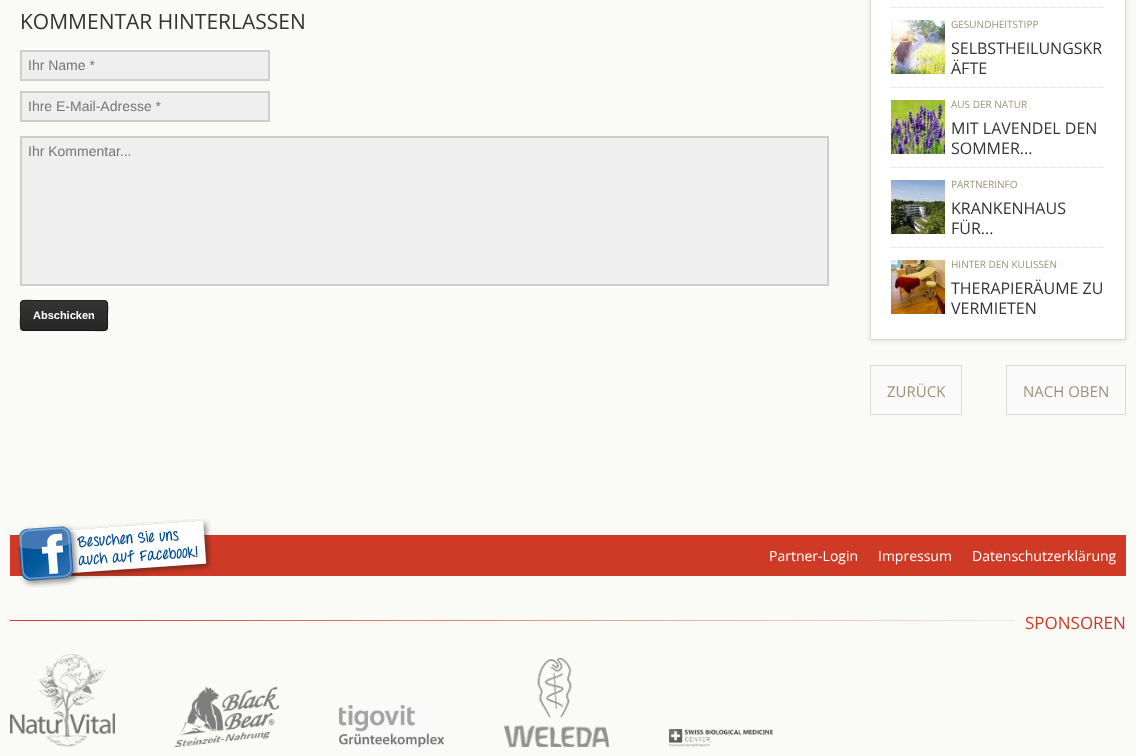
async function draw(canvas) {
	canvas.width = 1136;
	canvas.height = 756;
	const c = canvas.getContext('2d');
	c.miterLimit = 4;
	c.fontKerning = 'normal';
	async function loadImage(src) {
		const img = new Image();
		img.src = src;
		await img.decode();
		return img;
	}
	let gradient;

	c.fillStyle = '#fafaf7';
	c.fillRect(0, 0, 1136, 756);
	c.font = '21px Open Sans';
	c.fillStyle = '#343434';
	c.fillText('KOMMENTAR HINTERLASSEN', 20, 29);
	c.fillStyle = '#efefef';
	c.beginPath();
	c.rect(21, 51, 248, 29);
	c.fill();
	c.strokeStyle = '#cecece';
	c.lineWidth = 2;
	c.stroke();
	c.font = '14px Liberation Sans';
	c.fillStyle = '#757575';
	c.fillText('Ihr Name *', 28, 70);
	c.fillStyle = '#efefef';
	c.beginPath();
	c.rect(21, 92, 248, 29);
	c.fill();
	c.stroke();
	c.fillStyle = '#757575';
	c.fillText('Ihre E-Mail-Adresse *', 28, 111);
	c.fillStyle = '#efefef';
	c.beginPath();
	c.rect(21, 137, 807, 148);
	c.fill();
	c.stroke();
	c.fillStyle = '#757575';
	c.fillText('Ihr Kommentar...', 28, 156);
	c.save();
	c.beginPath();
	c.roundRect(20, 300, 88, 31, 4);
	c.clip();
	gradient = c.createLinearGradient(64, 272, 64, 301);
	gradient.addColorStop(0, '#343434');
	gradient.addColorStop(1, '#272727');
	c.fillStyle = gradient;
	c.fillRect(20, 300, 88, 1);
	gradient = c.createLinearGradient(64, 301, 64, 330);
	gradient.addColorStop(0, '#343434');
	gradient.addColorStop(1, '#272727');
	c.fillStyle = gradient;
	c.fillRect(20, 301, 88, 29);
	gradient = c.createLinearGradient(64, 330, 64, 359);
	gradient.addColorStop(0, '#343434');
	gradient.addColorStop(1, '#272727');
	c.fillStyle = gradient;
	c.fillRect(20, 330, 88, 1);
	c.restore();
	c.beginPath();
	c.moveTo(106.5, 301.5);
	c.bezierCurveTo(108.5, 304, 107.5, 312.5, 107.5, 315.5);
	c.bezierCurveTo(107.5, 333.5, 110, 330.5, 90.5, 330.5);
	c.lineTo(24, 330.5);
	c.lineTo(21.5, 329.5);
	c.strokeStyle = '#131313';
	c.lineWidth = 1;
	c.stroke();
	c.beginPath();
	c.moveTo(21.5, 329.5);
	c.bezierCurveTo(19.5, 327, 20.5, 318.5, 20.5, 315.5);
	c.bezierCurveTo(20.5, 297.5, 18, 300.5, 37.5, 300.5);
	c.lineTo(104, 300.5);
	c.lineTo(106.5, 301.5);
	c.strokeStyle = '#222';
	c.stroke();
	c.font = 'bold 11px Liberation Sans';
	c.fillStyle = '#fff';
	c.fillText('Abschicken', 33, 319);
	c.fillStyle = '#0000001a';
	c.filter = 'blur(2.5px)';
	c.beginPath();
	c.rect(870, -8, 256, 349);
	c.fill();
	c.filter = 'none';
	c.fillStyle = '#fff';
	c.beginPath();
	c.rect(870.5, -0.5, 255, 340);
	c.fill();
	c.strokeStyle = '#d9d9d9';
	c.stroke();
	c.beginPath();
	c.moveTo(891, 7.5);
	c.lineTo(1105, 7.5);
	c.strokeStyle = '#ddd';
	c.setLineDash([1, 1]);
	c.stroke();
	c.beginPath();
	c.moveTo(891, 87.5);
	c.lineTo(1105, 87.5);
	c.stroke();
	c.drawImage(await loadImage('img1.png'), 891, 20, 54, 54);
	c.font = '10px Open Sans';
	c.fillStyle = '#9b9379';
	c.fillText('GESUNDHEITSTIPP', 951, 28);
	c.font = '16px Open Sans';
	c.fillStyle = '#343434';
	c.fillText('SELBSTHEILUNGSKR', 951, 54);
	c.fillText('ÄFTE', 951, 74);
	c.beginPath();
	c.moveTo(891, 167.5);
	c.lineTo(1105, 167.5);
	c.stroke();
	c.drawImage(await loadImage('img2.png'), 891, 100, 54, 54);
	c.font = '10px Open Sans';
	c.fillStyle = '#9b9379';
	c.fillText('AUS DER NATUR', 951, 108);
	c.font = '16px Open Sans';
	c.fillStyle = '#343434';
	c.fillText('MIT LAVENDEL DEN', 951, 134);
	c.fillText('SOMMER...', 951, 154);
	c.beginPath();
	c.moveTo(891, 247.5);
	c.lineTo(1105, 247.5);
	c.stroke();
	c.drawImage(await loadImage('img3.png'), 891, 180, 54, 54);
	c.font = '10px Open Sans';
	c.fillStyle = '#9b9379';
	c.fillText('PARTNERINFO', 951, 188);
	c.font = '16px Open Sans';
	c.fillStyle = '#343434';
	c.fillText('KRANKENHAUS', 951, 214);
	c.fillText('FÜR...', 951, 234);
	c.drawImage(await loadImage('img4.png'), 891, 260, 54, 54);
	c.font = '10px Open Sans';
	c.fillStyle = '#9b9379';
	c.fillText('HINTER DEN KULISSEN', 951, 268);
	c.font = '16px Open Sans';
	c.fillStyle = '#343434';
	c.fillText('THERAPIERÄUME ZU', 951, 294);
	c.fillText('VERMIETEN', 951, 314);
	c.fillStyle = '#fafafa';
	c.beginPath();
	c.rect(870.5, 365.5, 91, 49);
	c.fill();
	c.strokeStyle = '#d9d9d9';
	c.setLineDash([]);
	c.stroke();
	c.font = '15px Open Sans';
	c.fillStyle = '#9b9379';
	c.fillText('ZURÜCK', 887, 397);
	c.fillStyle = '#fafafa';
	c.beginPath();
	c.rect(1006.5, 365.5, 119, 49);
	c.fill();
	c.stroke();
	c.fillStyle = '#9b9379';
	c.fillText('NACH OBEN', 1023, 397);
	c.fillStyle = '#ce3a25';
	c.fillRect(10, 535, 1116, 41);
	c.drawImage(await loadImage('img5.png'), 17, 519, 196, 69);
	c.font = '14px Open Sans';
	c.fillStyle = '#fff';
	for (const [text, x, y] of [
		['Partner-Login', 769, 561],
		['Impressum', 878, 561],
		['Datenschutzerklärung', 972, 561],
	]) {
		c.fillText(text, x, y);
	}
	gradient = c.createLinearGradient(10, 621, 1126, 621);
	gradient.addColorStop(0, '#ce3a25');
	gradient.addColorStop(1, '#fbfaf8');
	c.fillStyle = gradient;
	c.fillRect(10, 620, 1005, 1);
	c.font = '17px Open Sans';
	c.fillStyle = '#ce3a25';
	c.fillText('SPONSOREN', 1025, 629);
	c.drawImage(await loadImage('img6.png'), 10, 654, 105, 93);
	c.drawImage(await loadImage('img7.png'), 175, 687, 104, 60);
	c.drawImage(await loadImage('img8.png'), 339, 705, 105, 42);
	c.drawImage(await loadImage('img9.png'), 504, 658, 105, 89);
	c.drawImage(await loadImage('img10.png'), 669, 729, 104, 18);
}

draw(document.querySelector('canvas'));
